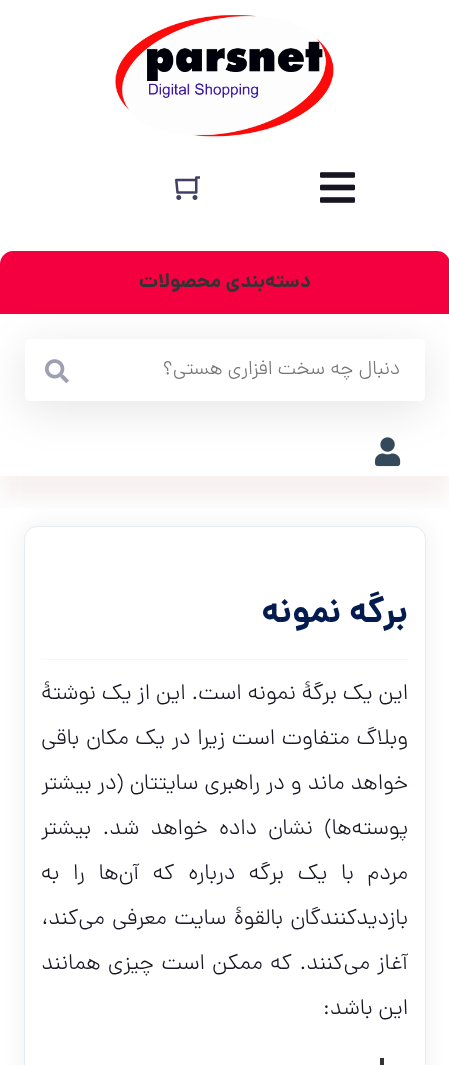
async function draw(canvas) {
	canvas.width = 449;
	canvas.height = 1065;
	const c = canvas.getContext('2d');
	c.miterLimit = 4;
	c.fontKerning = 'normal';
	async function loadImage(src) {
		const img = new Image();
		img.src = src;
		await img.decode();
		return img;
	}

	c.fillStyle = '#fff';
	c.fillRect(0, 0, 449, 1065);
	c.drawImage(await loadImage('img1.png'), 115, 15, 219, 122);
	c.drawImage(await loadImage('img2.png'), 320, 172, 35, 31);
	c.drawImage(await loadImage('img3.png'), 175, 176, 25, 24);
	c.fillStyle = '#0000000f';
	c.filter = 'blur(12.5px)';
	c.beginPath();
	c.roundRect(24, 526, 402, 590, 13);
	c.fill();
	c.filter = 'none';
	c.fillStyle = '#fff';
	c.beginPath();
	c.roundRect(24.5, 526.5, 401, 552, 12.5);
	c.fill();
	c.strokeStyle = '#e7ecf0';
	c.stroke();
	c.save();
	c.beginPath();
	c.rect(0, 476, 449, 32);
	c.clip();
	c.fillStyle = '#92333e12';
	c.filter = 'blur(12.5px)';
	c.beginPath();
	c.rect(0, 251, 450, 250);
	c.fill();
	c.filter = 'none';
	c.restore();
	c.fillStyle = '#f40041';
	c.beginPath();
	c.moveTo(13, 251);
	c.lineTo(437, 251);
	c.bezierCurveTo(444, 251, 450, 257, 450, 264);
	c.lineTo(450, 314);
	c.lineTo(0, 314);
	c.lineTo(0, 264);
	c.bezierCurveTo(0, 257, 6, 251, 13, 251);
	c.closePath();
	c.fill();
	c.direction = 'rtl';
	c.font = 'bold 20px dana';
	c.fillStyle = '#333';
	c.fillText('دسته‌بندی محصولات', 311, 287);
	c.save();
	c.beginPath();
	c.moveTo(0, 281);
	c.lineTo(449, 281);
	c.lineTo(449, 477);
	c.lineTo(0, 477);
	c.closePath();
	c.moveTo(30, 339);
	c.lineTo(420, 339);
	c.bezierCurveTo(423, 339, 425, 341, 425, 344);
	c.lineTo(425, 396);
	c.bezierCurveTo(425, 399, 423, 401, 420, 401);
	c.lineTo(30, 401);
	c.bezierCurveTo(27, 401, 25, 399, 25, 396);
	c.lineTo(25, 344);
	c.bezierCurveTo(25, 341, 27, 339, 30, 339);
	c.closePath();
	c.clip('evenodd');
	c.fillStyle = '#0000001a';
	c.filter = 'blur(22px)';
	c.beginPath();
	c.roundRect(25, 348, 400, 62, 5);
	c.fill();
	c.filter = 'none';
	c.restore();
	c.font = '300 20px dana';
	c.fillStyle = '#757575';
	c.fillText('دنبال چه سخت افزاری هستی؟', 400, 374);
	c.drawImage(await loadImage('img4.png'), 45, 359, 24, 24);
	c.drawImage(await loadImage('img5.png'), 375, 437, 26, 30);
	c.fillStyle = '#f4f7fc';
	c.fillRect(41, 659, 368, 1);
	c.font = 'bold 35px dana';
	c.fillStyle = '#031b4e';
	c.fillText('برگه نمونه', 408, 622);
	c.font = '300 22.5px dana';
	c.fillStyle = '#181522';
	c.fillText('این یک برگهٔ نمونه است. این از یک نوشتهٔ', 408, 699);
	c.wordSpacing = '0.75px';
	c.fillText('وبلاگ متفاوت است زیرا در یک مکان باقی', 408, 744);
	c.wordSpacing = '0px';
	c.fillText('خواهد ماند و در راهبری سایتتان (در بیشتر', 408, 789);
	c.wordSpacing = '5.25px';
	c.fillText('پوسته‌ها) نشان داده خواهد شد. بیشتر', 408, 834);
	c.wordSpacing = '7.75px';
	c.fillText('مردم با یک برگه درباره که آن‌ها را به', 408, 879);
	c.wordSpacing = '1.5px';
	c.fillText('بازدیدکنندگان بالقوهٔ سایت معرفی می‌کند،', 408, 924);
	c.fillText('آغاز می‌کنند. که ممکن است چیزی همانند', 408, 969);
	c.wordSpacing = '0px';
	c.fillText('این باشد:', 408, 1014);
	c.fillStyle = '#333';
	c.fillRect(380, 1058, 4, 7);
}

draw(document.querySelector('canvas'));
